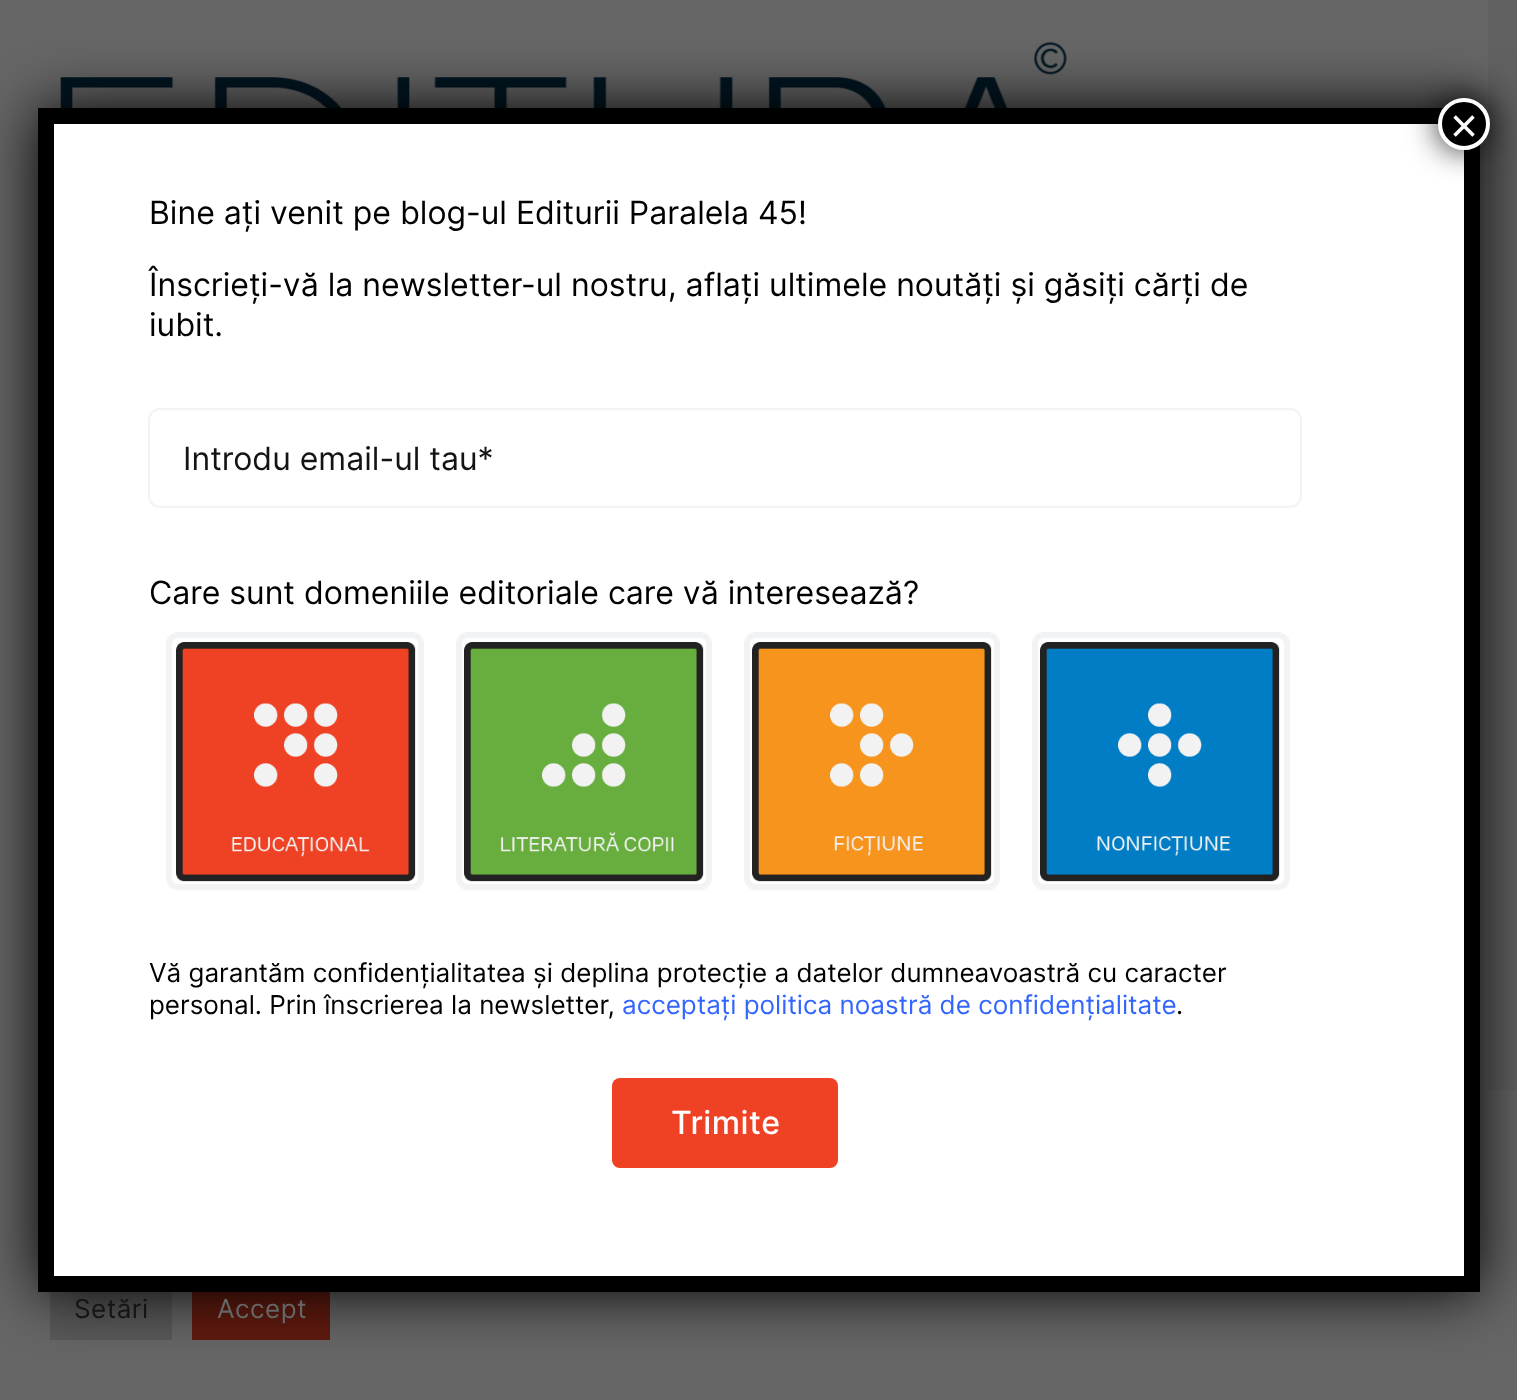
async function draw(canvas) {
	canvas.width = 1517;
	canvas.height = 1400;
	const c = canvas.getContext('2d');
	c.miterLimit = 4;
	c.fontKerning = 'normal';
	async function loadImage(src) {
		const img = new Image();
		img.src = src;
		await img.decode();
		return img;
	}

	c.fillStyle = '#616162';
	c.fillRect(0, 0, 1517, 1400);
	c.fillStyle = '#666';
	c.fillRect(0, 0, 1488, 1090);
	c.drawImage(await loadImage('img1.png'), 60, 41, 1368, 67);
	for (const [x, y, w, h, color] of [
		[0, 1090, 1517, 310, '#666'],
		[50, 1292, 122, 48, '#59595a'],
		[192, 1292, 138, 48, '#601a0e'],
	]) {
		c.fillStyle = color;
		c.fillRect(x, y, w, h);
	}
	c.fillStyle = '#020202';
	c.filter = 'blur(30px)';
	c.beginPath();
	c.roundRect(38, 108, 1442, 1184, 6);
	c.fill();
	c.filter = 'none';
	c.fillStyle = '#fff';
	c.fillRect(54, 124, 1410, 1152);
	c.beginPath();
	c.moveTo(46, 116);
	c.lineTo(1472, 116);
	c.lineTo(1472, 1284);
	c.lineTo(46, 1284);
	c.closePath();
	c.strokeStyle = '#000';
	c.lineWidth = 16;
	c.stroke();
	c.fillStyle = '#020202bf';
	c.filter = 'blur(15px)';
	c.beginPath();
	c.roundRect(1436, 96, 56, 56, 28);
	c.fill();
	c.filter = 'none';
	c.fillStyle = '#000';
	c.beginPath();
	c.arc(1464, 124, 24, 0, 2 * Math.PI);
	c.fill();
	c.strokeStyle = '#fff';
	c.lineWidth = 4;
	c.stroke();
	c.font = '48px Liberation Sans';
	c.fillStyle = '#fff';
	c.fillText('×', 1450, 142);
	c.font = '32px Inter';
	c.fillStyle = '#000';
	for (const [text, x, y] of [
		['Bine ați venit pe blog-ul Editurii Paralela 45!', 149, 224],
		['Înscrieți-vă la newsletter-ul nostru, aflați ultimele noutăți și găsiți cărți de', 149, 296],
		['iubit.', 149, 336],
	]) {
		c.fillText(text, x, y);
	}
	c.beginPath();
	c.roundRect(149, 409, 1152, 98, 11);
	c.strokeStyle = '#f2f3f5';
	c.lineWidth = 2;
	c.stroke();
	c.fillStyle = '#141414';
	c.fillText('Introdu email-ul tau*', 183, 470);
	c.fillStyle = '#000';
	c.fillText('Care sunt domeniile editoriale care vă interesează?', 149, 604);
	c.beginPath();
	c.roundRect(169, 635, 252, 252, 9);
	c.lineWidth = 6;
	c.stroke();
	c.drawImage(await loadImage('img2.png'), 176, 642, 240, 240);
	c.beginPath();
	c.roundRect(459, 635, 250, 252, 9);
	c.stroke();
	c.drawImage(await loadImage('img3.png'), 464, 642, 240, 240);
	c.beginPath();
	c.roundRect(747, 635, 250, 252, 9);
	c.stroke();
	c.drawImage(await loadImage('img4.png'), 752, 642, 240, 240);
	c.beginPath();
	c.roundRect(1035, 635, 252, 252, 9);
	c.stroke();
	c.drawImage(await loadImage('img5.png'), 1040, 642, 240, 240);
	c.font = '26px Inter';
	c.fillText('Vă garantăm confidențialitatea și deplina protecție a datelor dumneavoastră cu caracter', 149, 982);
	c.fillText('personal. Prin înscrierea la newsletter,', 149, 1014);
	c.fillStyle = '#36f';
	c.fillText('acceptați politica noastră de confidențialitate', 622, 1014);
	c.fillStyle = '#000';
	c.fillText('.', 1176, 1014);
	c.fillStyle = '#ef4123';
	c.beginPath();
	c.roundRect(612, 1078, 226, 90, 8);
	c.fill();
	c.letterSpacing = '0.5px';
	c.font = '500 32px Inter';
	c.fillStyle = '#fff';
	c.fillText('Trimite', 671, 1134);
	c.font = '26px Inter';
	c.fillStyle = '#141414';
	c.fillText('Setări', 74, 1318);
	c.fillStyle = '#666';
	c.fillText('Accept', 217, 1318);
}

draw(document.querySelector('canvas'));
